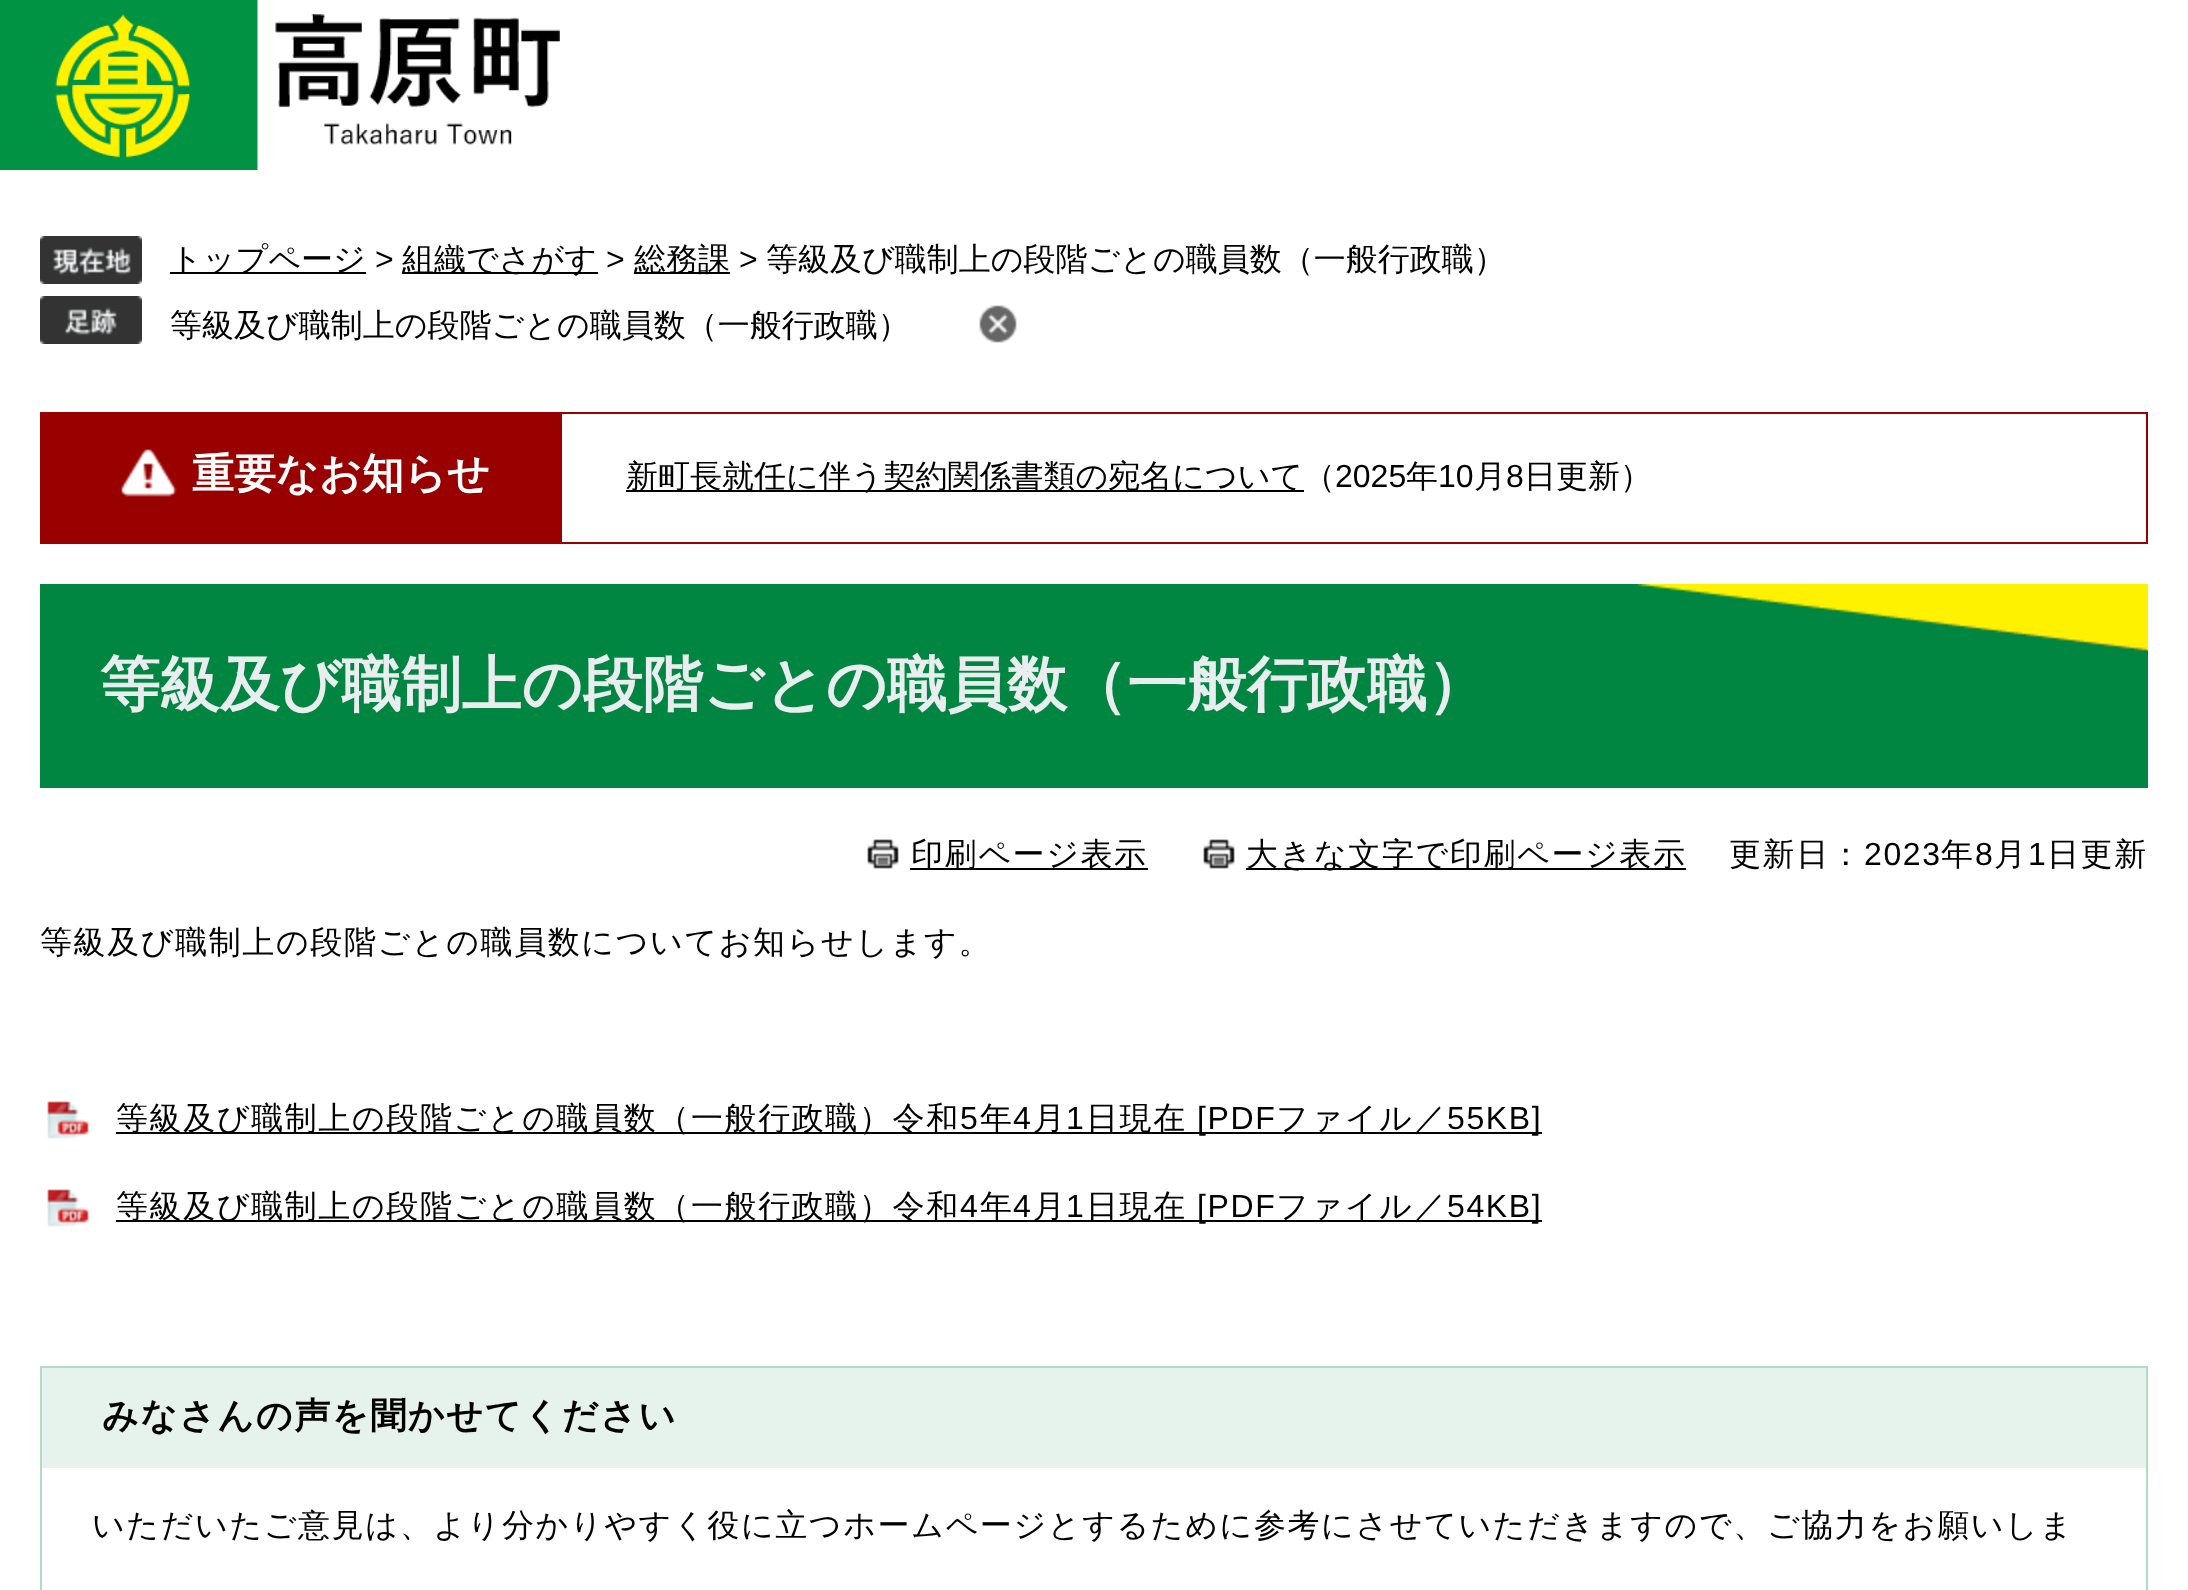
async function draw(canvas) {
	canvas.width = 2188;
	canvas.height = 1590;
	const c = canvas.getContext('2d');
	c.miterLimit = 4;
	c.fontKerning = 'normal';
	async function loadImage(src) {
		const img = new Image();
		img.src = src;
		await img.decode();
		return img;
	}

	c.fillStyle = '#fff';
	c.fillRect(0, 0, 2188, 1590);
	c.drawImage(await loadImage('img1.png'), 0, 0, 560, 170);
	c.drawImage(await loadImage('img2.png'), 40, 236, 102, 48);
	c.fillStyle = '#000';
	c.fillRect(170, 272, 196, 2);
	c.font = '500 32px WenQuanYi Zen Hei';
	c.fillText('トップページ', 170, 270);
	c.font = '32px Liberation Sans';
	c.fillText('>', 375, 270);
	c.fillRect(402, 272, 196, 2);
	c.font = '500 32px WenQuanYi Zen Hei';
	c.fillText('組織でさがす', 402, 270);
	c.font = '32px Liberation Sans';
	c.fillText('>', 606, 270);
	c.fillRect(634, 272, 96, 2);
	c.font = '500 32px WenQuanYi Zen Hei';
	c.fillText('総務課', 634, 270);
	c.font = '32px Liberation Sans';
	c.fillText('>', 739, 270);
	c.font = '500 32px WenQuanYi Zen Hei';
	c.fillText('等級及び職制上の段階ごとの職員数（一般行政職）', 766, 270);
	c.drawImage(await loadImage('img3.png'), 40, 296, 102, 48);
	c.fillText('等級及び職制上の段階ごとの職員数（一般行政職）', 170, 336);
	c.drawImage(await loadImage('img4.png'), 979, 305, 38, 38);
	c.strokeStyle = '#990101';
	c.lineWidth = 2;
	c.strokeRect(41, 413, 2106, 130);
	c.fillStyle = '#900';
	c.fillRect(42, 414, 520, 128);
	c.drawImage(await loadImage('img5.png'), 121, 449, 56, 48);
	c.font = 'bold 42px WenQuanYi Zen Hei';
	c.fillStyle = '#fff';
	c.fillText('重要なお知らせ', 192, 488);
	c.fillStyle = '#000';
	c.fillRect(626, 490, 678, 2);
	c.font = '500 32px WenQuanYi Zen Hei';
	c.fillText('新町長就任に伴う契約関係書類の宛名について（', 626, 487);
	c.font = '32px Liberation Sans';
	c.fillText('2025', 1335, 487);
	c.font = '500 32px WenQuanYi Zen Hei';
	c.fillText('年', 1406, 487);
	c.font = '32px Liberation Sans';
	c.fillText('10', 1438, 487);
	c.font = '500 32px WenQuanYi Zen Hei';
	c.fillText('月', 1474, 487);
	c.font = '32px Liberation Sans';
	c.fillText('8', 1506, 487);
	c.font = '500 32px WenQuanYi Zen Hei';
	c.fillText('日更新）', 1524, 487);
	c.fillStyle = '#008640';
	c.fillRect(40, 584, 2108, 204);
	c.drawImage(await loadImage('img6.png'), 1637, 584, 511, 67);
	c.font = 'bold 60px WenQuanYi Zen Hei';
	c.fillStyle = '#e9edef';
	c.fillText('等級及び職制上の段階ごとの職員数（一般行政職）', 100, 705);
	c.drawImage(await loadImage('img7.png'), 867, 839, 32, 30);
	c.fillStyle = '#000';
	c.fillRect(910, 868, 238, 2);
	c.letterSpacing = '1.6px';
	c.font = '500 32px WenQuanYi Zen Hei';
	c.fillText('印刷ページ表示', 911, 865);
	c.drawImage(await loadImage('img7.png'), 1203, 839, 32, 30);
	c.fillRect(1246, 868, 440, 2);
	c.fillText('大きな文字で印刷ページ表示', 1246, 865);
	c.fillText('更新日：', 1729, 865);
	c.font = '32px Liberation Sans';
	c.fillText('2023', 1864, 865);
	c.font = '500 32px WenQuanYi Zen Hei';
	c.fillText('年', 1941, 865);
	c.font = '32px Liberation Sans';
	c.fillText('8', 1975, 865);
	c.font = '500 32px WenQuanYi Zen Hei';
	c.fillText('月', 1994, 865);
	c.font = '32px Liberation Sans';
	c.fillText('1', 2028, 865);
	c.font = '500 32px WenQuanYi Zen Hei';
	c.fillText('日更新', 2047, 865);
	c.fillText('等級及び職制上の段階ごとの職員数についてお知らせします。', 40, 953);
	c.drawImage(await loadImage('img8.png'), 47, 1101, 42, 38);
	c.fillRect(116, 1132, 1426, 2);
	c.fillText('等級及び職制上の段階ごとの職員数（一般行政職）令和', 116, 1129);
	c.font = '32px Liberation Sans';
	c.fillText('5', 960, 1129);
	c.font = '500 32px WenQuanYi Zen Hei';
	c.fillText('年', 980, 1129);
	c.font = '32px Liberation Sans';
	c.fillText('4', 1013, 1129);
	c.font = '500 32px WenQuanYi Zen Hei';
	c.fillText('月', 1033, 1129);
	c.font = '32px Liberation Sans';
	c.fillText('1', 1066, 1129);
	c.font = '500 32px WenQuanYi Zen Hei';
	c.fillText('日現在', 1086, 1129);
	c.font = '32px Liberation Sans';
	c.fillText('[PDF', 1197, 1129);
	c.font = '500 32px WenQuanYi Zen Hei';
	c.fillText('ファイル／', 1276, 1129);
	c.font = '32px Liberation Sans';
	c.fillText('55KB]', 1447, 1129);
	c.drawImage(await loadImage('img8.png'), 47, 1189, 42, 38);
	c.fillRect(116, 1220, 1426, 2);
	c.font = '500 32px WenQuanYi Zen Hei';
	c.fillText('等級及び職制上の段階ごとの職員数（一般行政職）令和', 116, 1217);
	c.font = '32px Liberation Sans';
	c.fillText('4', 960, 1217);
	c.font = '500 32px WenQuanYi Zen Hei';
	c.fillText('年', 980, 1217);
	c.font = '32px Liberation Sans';
	c.fillText('4', 1013, 1217);
	c.font = '500 32px WenQuanYi Zen Hei';
	c.fillText('月', 1033, 1217);
	c.font = '32px Liberation Sans';
	c.fillText('1', 1066, 1217);
	c.font = '500 32px WenQuanYi Zen Hei';
	c.fillText('日現在', 1086, 1217);
	c.font = '32px Liberation Sans';
	c.fillText('[PDF', 1197, 1217);
	c.font = '500 32px WenQuanYi Zen Hei';
	c.fillText('ファイル／', 1276, 1217);
	c.font = '32px Liberation Sans';
	c.fillText('54KB]', 1447, 1217);
	c.strokeStyle = '#b2dac5';
	c.strokeRect(41, 1367, 2106, 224);
	c.fillStyle = '#e6f3ec';
	c.fillRect(42, 1368, 2104, 100);
	c.font = 'bold 36px WenQuanYi Zen Hei';
	c.fillStyle = '#000';
	c.fillText('みなさんの声を聞かせてください', 102, 1428);
	c.font = '500 32px WenQuanYi Zen Hei';
	c.fillText('いただいたご意見は、より分かりやすく役に立つホームページとするために参考にさせていただきますので、ご協力をお願いしま', 92, 1536);
}

draw(document.querySelector('canvas'));
